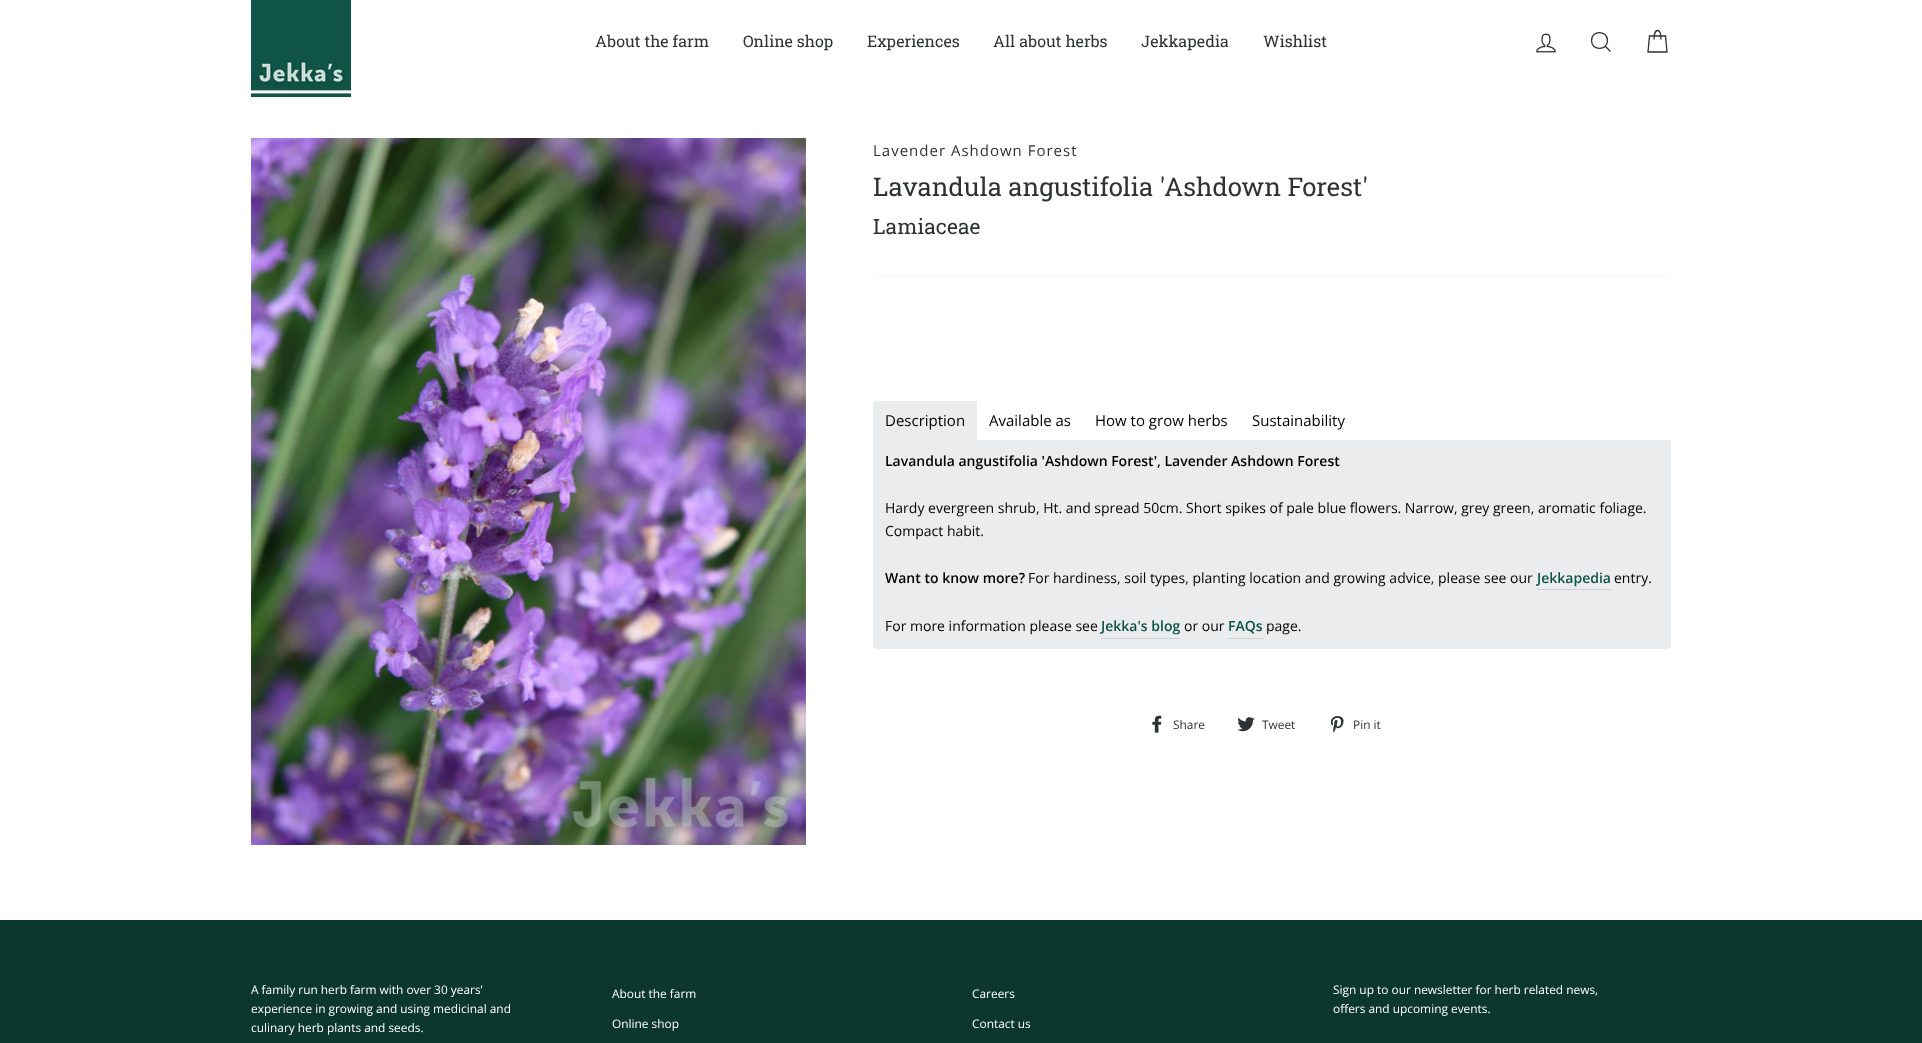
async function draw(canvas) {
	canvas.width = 1922;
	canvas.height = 1043;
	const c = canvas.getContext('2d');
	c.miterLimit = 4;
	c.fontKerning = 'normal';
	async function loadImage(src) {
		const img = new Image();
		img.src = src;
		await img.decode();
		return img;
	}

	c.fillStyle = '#fff';
	c.fillRect(0, 0, 1922, 1043);
	c.drawImage(await loadImage('img1.png'), 251, 0, 100, 97);
	c.font = '16px Roboto Slab';
	c.fillStyle = '#2e3234';
	for (const [text, x, y] of [
		['About the farm', 595, 47],
		['Online shop', 743, 47],
		['Experiences', 867, 47],
		['All about herbs', 993, 47],
		['Jekkapedia', 1141, 47],
		['Wishlist', 1263, 47],
	]) {
		c.fillText(text, x, y);
	}
	c.drawImage(await loadImage('img2.png'), 1536, 33, 20, 20);
	c.beginPath();
	c.moveTo(1607.5, 40.5);
	c.bezierCurveTo(1607.5, 51, 1591.5, 51, 1591.5, 40.5);
	c.bezierCurveTo(1591.5, 30, 1607.5, 30, 1607.5, 40.5);
	c.closePath();
	c.moveTo(1610.5, 51.5);
	c.lineTo(1605.5, 46.5);
	c.strokeStyle = '#2e3234';
	c.lineWidth = 1.3;
	c.stroke();
	c.beginPath();
	c.moveTo(1654, 39.5);
	c.bezierCurveTo(1654, 27.5, 1661, 27.5, 1661, 39.5);
	c.moveTo(1649.5, 36);
	c.lineTo(1665.5, 36);
	c.lineTo(1667, 52);
	c.lineTo(1648, 52);
	c.closePath();
	c.stroke();
	c.drawImage(await loadImage('img3.png'), 251, 138, 555, 707);
	c.letterSpacing = '1px';
	c.font = '15px Open Sans';
	c.fillText('Lavender Ashdown Forest', 873, 156);
	c.letterSpacing = '0px';
	c.font = '25.75px Roboto Slab';
	c.fillText('Lavandula angustifolia \'Ashdown Forest\'', 873, 196);
	c.font = '21px Roboto Slab';
	c.fillText('Lamiaceae', 873, 234);
	c.fillStyle = '#f5f5f5';
	c.fillRect(873, 275, 798, 1);
	c.fillStyle = '#eaecee';
	c.beginPath();
	c.roundRect(873, 401, 104, 39, [3, 0, 0, 0]);
	c.fill();
	c.font = '15px Open Sans';
	c.fillStyle = '#000';
	for (const [text, x, y] of [
		['Description', 885, 426],
		['Available as', 989, 426],
		['How to grow herbs', 1095, 426],
		['Sustainability', 1252, 426],
	]) {
		c.fillText(text, x, y);
	}
	c.fillStyle = '#eaecee';
	c.beginPath();
	c.roundRect(873, 440, 798, 209, [0, 3, 3, 3]);
	c.fill();
	c.font = '600 14px Open Sans';
	c.fillStyle = '#000';
	c.fillText('Lavandula angustifolia \'Ashdown Forest\', Lavender Ashdown Forest', 885, 466);
	c.font = '14px Open Sans';
	c.fillText('Hardy evergreen shrub, Ht. and spread 50cm. Short spikes of pale blue flowers. Narrow, grey green, aromatic foliage.', 885, 513);
	c.fillText('Compact habit.', 885, 536);
	c.font = '600 14px Open Sans';
	c.fillText('Want to know more?', 885, 583);
	c.font = '14px Open Sans';
	c.fillText('For hardiness, soil types, planting location and growing advice, please see our', 1028, 583);
	c.fillStyle = '#ced0d2';
	c.fillRect(1537, 589, 74, 1);
	c.font = '600 14px Open Sans';
	c.fillStyle = '#0c5245';
	c.fillText('Jekkapedia', 1537, 583);
	c.font = '14px Open Sans';
	c.fillStyle = '#000';
	c.fillText('entry.', 1614, 583);
	c.fillText('For more information please see', 885, 631);
	c.fillStyle = '#ced0d2';
	c.fillRect(1101, 638, 79, 1);
	c.font = '600 14px Open Sans';
	c.fillStyle = '#0c5245';
	c.fillText('Jekka\'s blog', 1101, 631);
	c.font = '14px Open Sans';
	c.fillStyle = '#000';
	c.fillText('or our', 1184, 631);
	c.fillStyle = '#ced0d2';
	c.fillRect(1228, 638, 35, 1);
	c.font = '600 14px Open Sans';
	c.fillStyle = '#0c5245';
	c.fillText('FAQs', 1228, 631);
	c.font = '14px Open Sans';
	c.fillStyle = '#000';
	c.fillText('page.', 1266, 631);
	c.drawImage(await loadImage('img4.png'), 1152, 715, 10, 18);
	c.font = '11.9px Open Sans';
	c.fillStyle = '#2e3234';
	c.fillText('Share', 1173, 729);
	c.drawImage(await loadImage('img5.png'), 1237, 717, 18, 15);
	c.fillText('Tweet', 1262, 729);
	c.drawImage(await loadImage('img6.png'), 1330, 716, 14, 17);
	c.fillText('Pin it', 1353, 729);
	c.fillStyle = '#0b372e';
	c.fillRect(0, 920, 1922, 123);
	c.fillStyle = '#fff';
	for (const [text, x, y] of [
		['A family run herb farm with over 30 years’', 251, 994],
		['experience in growing and using medicinal and', 251, 1013],
		['culinary herb plants and seeds.', 251, 1032],
		['About the farm', 612, 998],
		['Online shop', 612, 1028],
		['Careers', 972, 998],
		['Contact us', 972, 1028],
		['Sign up to our newsletter for herb related news,', 1333, 994],
		['offers and upcoming events.', 1333, 1013],
	]) {
		c.fillText(text, x, y);
	}
}

draw(document.querySelector('canvas'));
